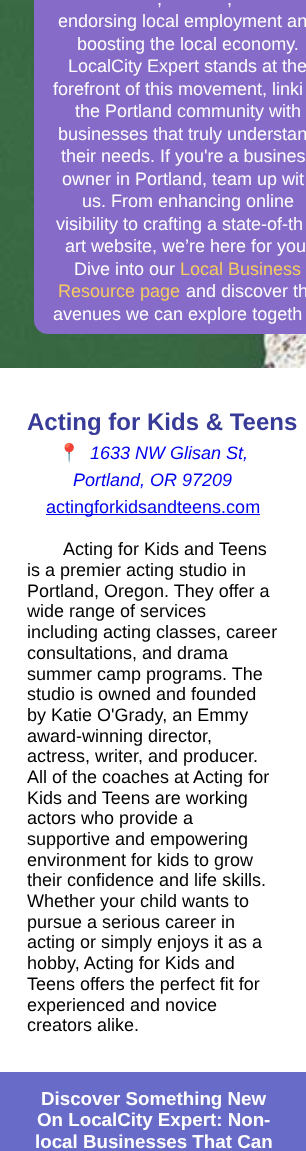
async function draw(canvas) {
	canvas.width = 306;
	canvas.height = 1151;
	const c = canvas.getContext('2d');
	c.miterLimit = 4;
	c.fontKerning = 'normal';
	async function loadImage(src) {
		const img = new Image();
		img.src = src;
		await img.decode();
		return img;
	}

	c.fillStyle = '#fff';
	c.fillRect(0, 0, 306, 1151);
	c.drawImage(await loadImage('img1.png'), 0, 0, 306, 368);
	c.fillStyle = '#866cc8';
	c.beginPath();
	c.roundRect(34, -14, 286, 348, 14);
	c.fill();
	c.font = '18px Liberation Sans';
	c.fillStyle = '#fff';
	for (const [text, x, y] of [
		[',', 157, 5],
		[',', 227, 5],
		['endorsing local employment an', 58, 27],
		['boosting the local economy.', 77, 50],
		['LocalCity Expert stands at the', 68, 72],
		['forefront of this movement, linki', 53, 95],
		['the Portland community with', 75, 117],
		['businesses that truly understan', 58, 140],
		['their needs. If you\'re a busines', 61, 162],
		['owner in Portland, team up wit', 62, 185],
		['us. From enhancing online', 82, 207],
		['visibility to crafting a state-of-th', 56, 230],
		['art website, we’re here for you', 65, 252],
		['Dive into our', 74, 275],
	]) {
		c.fillText(text, x, y);
	}
	c.fillStyle = '#f7cb62';
	c.fillText('Local Business', 180, 275);
	c.fillText('Resource page', 58, 297);
	c.fillStyle = '#fff';
	c.fillText('and discover th', 186, 297);
	c.fillText('avenues we can explore togeth', 53, 320);
	c.font = 'bold 24px Liberation Sans';
	c.fillStyle = '#383c98';
	c.fillText('Acting for Kids & Teens', 27, 430);
	c.font = '18px Noto Color Emoji';
	c.fillStyle = '#00e';
	c.fillText('📍', 58, 459);
	c.font = 'italic 18px Liberation Sans';
	c.fillText('1633 NW Glisan St,', 90, 459);
	c.fillText('Portland, OR 97209', 73, 486);
	c.fillRect(46, 514, 214, 1);
	c.font = '18px Liberation Sans';
	c.fillText('actingforkidsandteens.com', 46, 513);
	c.fillStyle = '#000';
	for (const [text, x, y] of [
		['Acting for Kids and Teens', 63, 555],
		['is a premier acting studio in', 27, 576],
		['Portland, Oregon. They offer a', 27, 597],
		['wide range of services', 27, 617],
		['including acting classes, career', 27, 638],
		['consultations, and drama', 27, 659],
		['summer camp programs. The', 27, 680],
		['studio is owned and founded', 27, 700],
		['by Katie O\'Grady, an Emmy', 27, 721],
		['award-winning director,', 27, 742],
		['actress, writer, and producer.', 27, 762],
		['All of the coaches at Acting for', 27, 783],
		['Kids and Teens are working', 27, 804],
		['actors who provide a', 27, 824],
		['supportive and empowering', 27, 845],
		['environment for kids to grow', 27, 866],
		['their confidence and life skills.', 27, 886],
		['Whether your child wants to', 27, 907],
		['pursue a serious career in', 27, 928],
		['acting or simply enjoys it as a', 27, 948],
		['hobby, Acting for Kids and', 27, 969],
		['Teens offers the perfect fit for', 27, 990],
		['experienced and novice', 27, 1011],
		['creators alike.', 27, 1031],
	]) {
		c.fillText(text, x, y);
	}
	c.fillStyle = '#686cc8';
	c.fillRect(0, 1072, 306, 79);
	c.font = 'bold 18.75px Liberation Sans';
	c.fillStyle = '#fff';
	for (const [text, x, y] of [
		['Discover Something New', 41, 1105],
		['On LocalCity Expert: Non-', 37, 1126],
		['local Businesses That Can', 35, 1148],
	]) {
		c.fillText(text, x, y);
	}
}

draw(document.querySelector('canvas'));
